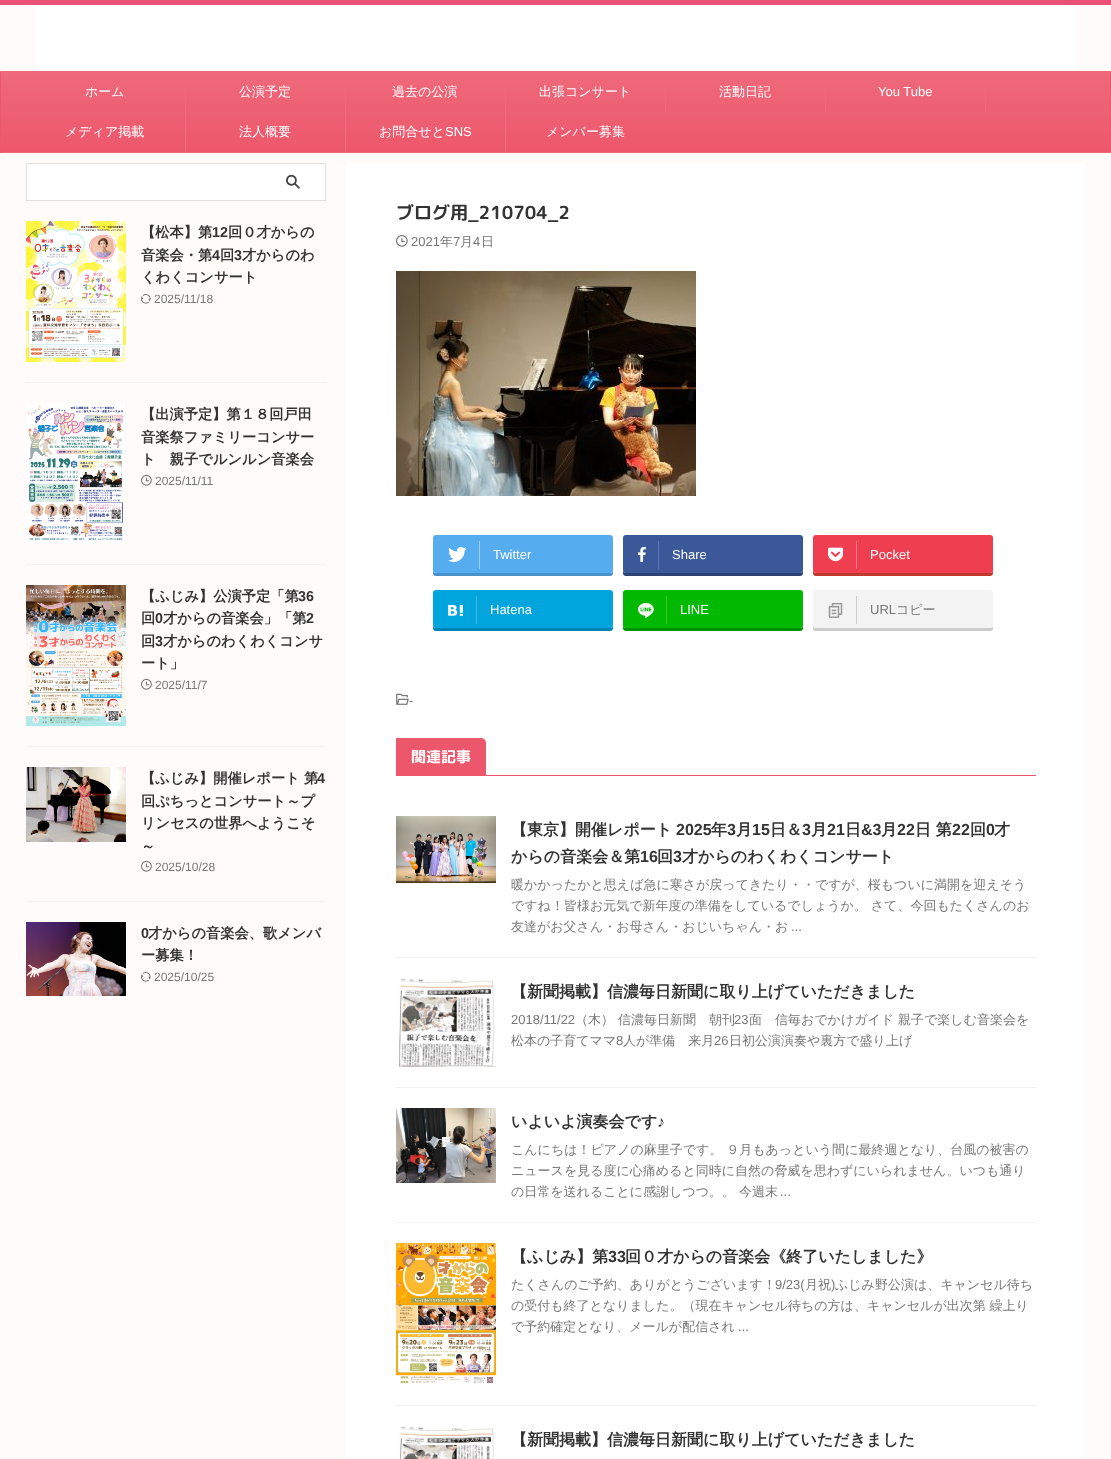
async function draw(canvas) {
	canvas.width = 1111;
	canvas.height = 1459;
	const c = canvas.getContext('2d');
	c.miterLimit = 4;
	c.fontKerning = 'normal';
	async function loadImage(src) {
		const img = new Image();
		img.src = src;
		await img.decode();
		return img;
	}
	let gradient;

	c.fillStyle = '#fffbfb';
	c.fillRect(0, 0, 1111, 1459);
	c.fillStyle = '#e95276';
	c.fillRect(0, 0, 1111, 5);
	c.fillStyle = '#fff';
	c.fillRect(36, 5, 1040, 66);
	gradient = c.createLinearGradient(556, -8, 556, 72);
	gradient.addColorStop(0, '#ef697b');
	gradient.addColorStop(1, '#ed576b');
	c.fillStyle = gradient;
	c.beginPath();
	c.roundRect(0, 71, 1111, 1, [1, 1, 0, 0]);
	c.fill();
	gradient = c.createLinearGradient(556, 72, 556, 152);
	gradient.addColorStop(0, '#ef697b');
	gradient.addColorStop(1, '#ed576b');
	c.fillStyle = gradient;
	c.fillRect(1, 72, 1109, 80);
	for (const [x, y, w, h, color] of [
		[1, 71, 1110, 1, '#ef697b'],
		[1110, 72, 1, 81, '#ed576b'],
		[1, 152, 1110, 1, '#ef697b'],
		[0, 72, 1, 81, '#ed576b'],
		[185, 83, 1, 69, '#ef697b'],
	]) {
		c.fillStyle = color;
		c.fillRect(x, y, w, h);
	}
	c.font = '500 13px WenQuanYi Zen Hei';
	c.fillStyle = '#fff';
	c.fillText('ホーム', 85, 96);
	c.fillStyle = '#ef697b';
	c.fillRect(345, 83, 1, 69);
	c.fillStyle = '#fff';
	c.fillText('公演予定', 239, 96);
	c.fillStyle = '#ef697b';
	c.fillRect(505, 83, 1, 69);
	c.fillStyle = '#fff';
	c.fillText('過去の公演', 392, 96);
	c.fillStyle = '#ef697b';
	c.fillRect(665, 83, 1, 29);
	c.fillStyle = '#fff';
	c.fillText('出張コンサート', 539, 96);
	c.fillStyle = '#ef697b';
	c.fillRect(825, 83, 1, 29);
	c.fillStyle = '#fff';
	c.fillText('活動日記', 719, 96);
	c.fillStyle = '#ef697b';
	c.fillRect(985, 83, 1, 29);
	c.font = '13px Liberation Sans';
	c.fillStyle = '#fff';
	c.fillText('You Tube', 878, 96);
	c.font = '500 13px WenQuanYi Zen Hei';
	for (const [text, x, y] of [
		['メディア掲載', 65, 136],
		['法人概要', 239, 136],
		['お問合せと', 379, 136],
	]) {
		c.fillText(text, x, y);
	}
	c.font = '13px Liberation Sans';
	c.fillText('SNS', 445, 136);
	c.font = '500 13px WenQuanYi Zen Hei';
	c.fillText('メンバー募集', 546, 136);
	c.strokeStyle = '#e0e0e0';
	c.strokeRect(26.5, 163.5, 299, 37);
	c.fillRect(27, 164, 298, 36);
	c.drawImage(await loadImage('img1.png'), 286, 174, 14, 15);
	c.fillStyle = '#f3f3f3';
	c.fillRect(26, 382, 300, 1);
	c.drawImage(await loadImage('img2.png'), 26, 221, 100, 141);
	c.font = 'bold 14.25px WenQuanYi Zen Hei';
	c.fillStyle = '#333';
	c.fillText('【松本】第', 141, 237);
	c.font = 'bold 14.25px Liberation Sans';
	c.fillText('12', 212, 237);
	c.font = 'bold 14.25px WenQuanYi Zen Hei';
	c.fillText('回０才からの', 228, 237);
	c.fillText('音楽会・第', 141, 260);
	c.font = 'bold 14.25px Liberation Sans';
	c.fillText('4', 212, 260);
	c.font = 'bold 14.25px WenQuanYi Zen Hei';
	c.fillText('回', 220, 260);
	c.font = 'bold 14.25px Liberation Sans';
	c.fillText('3', 234, 260);
	c.font = 'bold 14.25px WenQuanYi Zen Hei';
	c.fillText('才からのわ', 242, 260);
	c.fillText('くわくコンサート', 141, 282);
	c.drawImage(await loadImage('img3.png'), 141, 294, 10, 10);
	c.font = '12px Liberation Sans';
	c.fillStyle = '#777';
	c.fillText('2025/11/18', 154, 303);
	c.fillStyle = '#f3f3f3';
	c.fillRect(26, 564, 300, 1);
	c.drawImage(await loadImage('img4.png'), 27, 403, 99, 141);
	c.font = 'bold 14.25px WenQuanYi Zen Hei';
	c.fillStyle = '#333';
	for (const [text, x, y] of [
		['【出演予定】第１８回戸田', 141, 419],
		['音楽祭ファミリーコンサー', 141, 442],
		['ト　親子でルンルン音楽会', 141, 464],
	]) {
		c.fillText(text, x, y);
	}
	c.drawImage(await loadImage('img5.png'), 141, 474, 11, 12);
	c.font = '12px Liberation Sans';
	c.fillStyle = '#777';
	c.fillText('2025/11/11', 155, 485);
	c.fillStyle = '#f3f3f3';
	c.fillRect(26, 746, 300, 1);
	c.drawImage(await loadImage('img6.png'), 26, 585, 100, 141);
	c.font = 'bold 14.25px WenQuanYi Zen Hei';
	c.fillStyle = '#333';
	c.fillText('【ふじみ】公演予定「第', 141, 601);
	c.font = 'bold 14.25px Liberation Sans';
	c.fillText('36', 298, 601);
	c.font = 'bold 14.25px WenQuanYi Zen Hei';
	c.fillText('回', 141, 623);
	c.font = 'bold 14.25px Liberation Sans';
	c.fillText('0', 155, 623);
	c.font = 'bold 14.25px WenQuanYi Zen Hei';
	c.fillText('才からの音楽会」「第', 163, 623);
	c.font = 'bold 14.25px Liberation Sans';
	c.fillText('2', 306, 623);
	c.font = 'bold 14.25px WenQuanYi Zen Hei';
	c.fillText('回', 141, 646);
	c.font = 'bold 14.25px Liberation Sans';
	c.fillText('3', 155, 646);
	c.font = 'bold 14.25px WenQuanYi Zen Hei';
	c.fillText('才からのわくわくコンサ', 163, 646);
	c.fillText('ート」', 141, 668);
	c.drawImage(await loadImage('img5.png'), 141, 678, 11, 12);
	c.font = '12px Liberation Sans';
	c.fillStyle = '#777';
	c.fillText('2025/11/7', 155, 689);
	c.fillStyle = '#f3f3f3';
	c.fillRect(26, 901, 300, 1);
	c.drawImage(await loadImage('img7.png'), 26, 767, 100, 75);
	c.font = 'bold 14.25px WenQuanYi Zen Hei';
	c.fillStyle = '#333';
	c.fillText('【ふじみ】開催レポート 第', 141, 783);
	c.font = 'bold 14.25px Liberation Sans';
	c.fillText('4', 317, 783);
	c.font = 'bold 14.25px WenQuanYi Zen Hei';
	for (const [text, x, y] of [
		['回ぷちっとコンサート～プ', 141, 806],
		['リンセスの世界へようこそ', 141, 828],
		['～', 141, 851],
	]) {
		c.fillText(text, x, y);
	}
	c.drawImage(await loadImage('img5.png'), 141, 860, 11, 12);
	c.font = '12px Liberation Sans';
	c.fillStyle = '#777';
	c.fillText('2025/10/28', 155, 871);
	c.drawImage(await loadImage('img8.png'), 26, 922, 100, 74);
	c.font = 'bold 14.25px Liberation Sans';
	c.fillStyle = '#333';
	c.fillText('0', 141, 938);
	c.font = 'bold 14.25px WenQuanYi Zen Hei';
	c.fillText('才からの音楽会、歌メンバ', 148, 938);
	c.fillText('ー募集！', 141, 960);
	c.drawImage(await loadImage('img3.png'), 141, 972, 10, 10);
	c.font = '12px Liberation Sans';
	c.fillStyle = '#777';
	c.fillText('2025/10/25', 154, 981);
	c.fillStyle = '#fff';
	c.beginPath();
	c.roundRect(346, 163, 740, 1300, 4);
	c.fill();
	c.font = 'bold 18px "Rounded Mplus 1c Bold"';
	c.fillStyle = '#333';
	c.fillText('ブログ用_210704_2', 396, 219);
	c.drawImage(await loadImage('img9.png'), 396, 235, 12, 12);
	c.font = '13px Liberation Sans';
	c.fillStyle = '#777';
	c.fillText('2021', 411, 246);
	c.font = '500 13px WenQuanYi Zen Hei';
	c.fillText('年', 440, 246);
	c.font = '13px Liberation Sans';
	c.fillText('7', 453, 246);
	c.font = '500 13px WenQuanYi Zen Hei';
	c.fillText('月', 460, 246);
	c.font = '13px Liberation Sans';
	c.fillText('4', 473, 246);
	c.font = '500 13px WenQuanYi Zen Hei';
	c.fillText('日', 481, 246);
	c.drawImage(await loadImage('img10.png'), 396, 271, 300, 225);
	c.fillStyle = '#4892cb';
	c.beginPath();
	c.moveTo(433, 570);
	c.lineTo(433, 573);
	c.bezierCurveTo(433, 575, 434, 576, 436, 576);
	c.lineTo(610, 576);
	c.bezierCurveTo(612, 576, 613, 575, 613, 573);
	c.lineTo(613, 570);
	c.bezierCurveTo(613, 572, 612, 573, 610, 573);
	c.lineTo(436, 573);
	c.bezierCurveTo(434, 573, 433, 572, 433, 570);
	c.closePath();
	c.fill();
	c.fillStyle = '#55acee';
	c.beginPath();
	c.roundRect(433, 535, 180, 38, 3);
	c.fill();
	c.fillStyle = '#9acff4';
	c.fillRect(479, 541, 1, 28);
	c.drawImage(await loadImage('img11.png'), 448, 546, 19, 16);
	c.font = '13px Liberation Sans';
	c.fillStyle = '#fff';
	c.fillText('Twitter', 493, 559);
	c.fillStyle = '#2c4373';
	c.beginPath();
	c.moveTo(623, 570);
	c.lineTo(623, 573);
	c.bezierCurveTo(623, 575, 624, 576, 626, 576);
	c.lineTo(800, 576);
	c.bezierCurveTo(802, 576, 803, 575, 803, 573);
	c.lineTo(803, 570);
	c.bezierCurveTo(803, 572, 802, 573, 800, 573);
	c.lineTo(626, 573);
	c.bezierCurveTo(624, 573, 623, 572, 623, 570);
	c.closePath();
	c.fill();
	c.fillStyle = '#3b5998';
	c.beginPath();
	c.roundRect(623, 535, 180, 38, 3);
	c.fill();
	c.fillStyle = '#607bb2';
	c.fillRect(658, 541, 1, 28);
	c.drawImage(await loadImage('img12.png'), 638, 546, 8, 16);
	c.fillStyle = '#fff';
	c.fillText('Share', 672, 559);
	c.fillStyle = '#c0392b';
	c.beginPath();
	c.moveTo(813, 570);
	c.lineTo(813, 573);
	c.bezierCurveTo(813, 575, 814, 576, 816, 576);
	c.lineTo(990, 576);
	c.bezierCurveTo(992, 576, 993, 575, 993, 573);
	c.lineTo(993, 570);
	c.bezierCurveTo(993, 572, 992, 573, 990, 573);
	c.lineTo(816, 573);
	c.bezierCurveTo(814, 573, 813, 572, 813, 570);
	c.closePath();
	c.fill();
	c.fillStyle = '#f03e51';
	c.beginPath();
	c.roundRect(813, 535, 180, 38, 3);
	c.fill();
	c.fillStyle = '#f27985';
	c.fillRect(856, 541, 1, 28);
	c.drawImage(await loadImage('img13.png'), 828, 547, 15, 15);
	c.fillStyle = '#fff';
	c.fillText('Pocket', 870, 559);
	c.fillStyle = '#0081b8';
	c.beginPath();
	c.moveTo(433, 625);
	c.lineTo(433, 628);
	c.bezierCurveTo(433, 630, 434, 631, 436, 631);
	c.lineTo(610, 631);
	c.bezierCurveTo(612, 631, 613, 630, 613, 628);
	c.lineTo(613, 625);
	c.bezierCurveTo(613, 627, 612, 628, 610, 628);
	c.lineTo(436, 628);
	c.bezierCurveTo(434, 628, 433, 627, 433, 625);
	c.closePath();
	c.fill();
	c.fillStyle = '#00a5de';
	c.beginPath();
	c.roundRect(433, 590, 180, 38, 3);
	c.fill();
	c.fillStyle = '#48b6db';
	c.fillRect(476, 596, 1, 28);
	c.drawImage(await loadImage('img14.png'), 448, 605, 15, 11);
	c.fillStyle = '#fff';
	c.fillText('Hatena', 490, 614);
	c.fillStyle = '#009200';
	c.beginPath();
	c.moveTo(623, 625);
	c.lineTo(623, 628);
	c.bezierCurveTo(623, 630, 624, 631, 626, 631);
	c.lineTo(800, 631);
	c.bezierCurveTo(802, 631, 803, 630, 803, 628);
	c.lineTo(803, 625);
	c.bezierCurveTo(803, 627, 802, 628, 800, 628);
	c.lineTo(626, 628);
	c.bezierCurveTo(624, 628, 623, 627, 623, 625);
	c.closePath();
	c.fill();
	c.fillStyle = '#00b900';
	c.beginPath();
	c.roundRect(623, 590, 180, 38, 3);
	c.fill();
	c.fillStyle = '#3fcd00';
	c.fillRect(666, 596, 1, 28);
	c.drawImage(await loadImage('img15.png'), 638, 602, 16, 16);
	c.fillStyle = '#fff';
	c.fillText('LINE', 680, 614);
	c.fillStyle = '#ccc';
	c.beginPath();
	c.moveTo(813, 625);
	c.lineTo(813, 628);
	c.bezierCurveTo(813, 630, 814, 631, 816, 631);
	c.lineTo(990, 631);
	c.bezierCurveTo(992, 631, 993, 630, 993, 628);
	c.lineTo(993, 625);
	c.bezierCurveTo(993, 627, 992, 628, 990, 628);
	c.lineTo(816, 628);
	c.bezierCurveTo(814, 628, 813, 627, 813, 625);
	c.closePath();
	c.fill();
	c.fillStyle = '#f3f3f3';
	c.beginPath();
	c.roundRect(813, 590, 180, 38, 3);
	c.fill();
	c.fillStyle = '#ccc';
	c.fillRect(856, 596, 1, 28);
	c.drawImage(await loadImage('img16.png'), 828, 602, 15, 16);
	c.fillStyle = '#777';
	c.fillText('URL', 870, 614);
	c.font = '500 13px WenQuanYi Zen Hei';
	c.fillText('コピー', 896, 614);
	c.drawImage(await loadImage('img17.png'), 396, 693, 13, 12);
	c.font = '13px Liberation Sans';
	c.fillText('-', 409, 705);
	c.fillStyle = '#ed576b';
	c.fillRect(396, 775, 640, 1);
	c.beginPath();
	c.roundRect(396, 738, 90, 37, [0, 5, 0, 0]);
	c.fill();
	c.font = 'bold 15px "Rounded Mplus 1c Bold"';
	c.fillStyle = '#fff';
	c.fillText('関連記事', 411, 762);
	c.fillStyle = '#f3f3f3';
	c.fillRect(396, 957, 640, 1);
	c.drawImage(await loadImage('img18.png'), 396, 816, 100, 67);
	c.font = 'bold 16px WenQuanYi Zen Hei';
	c.fillStyle = '#333';
	c.fillText('【東京】開催レポート', 511, 835);
	c.font = 'bold 16px Liberation Sans';
	c.fillText('2025', 676, 835);
	c.font = 'bold 16px WenQuanYi Zen Hei';
	c.fillText('年', 711, 835);
	c.font = 'bold 16px Liberation Sans';
	c.fillText('3', 727, 835);
	c.font = 'bold 16px WenQuanYi Zen Hei';
	c.fillText('月', 736, 835);
	c.font = 'bold 16px Liberation Sans';
	c.fillText('15', 752, 835);
	c.font = 'bold 16px WenQuanYi Zen Hei';
	c.fillText('日＆', 770, 835);
	c.font = 'bold 16px Liberation Sans';
	c.fillText('3', 802, 835);
	c.font = 'bold 16px WenQuanYi Zen Hei';
	c.fillText('月', 811, 835);
	c.font = 'bold 16px Liberation Sans';
	c.fillText('21', 827, 835);
	c.font = 'bold 16px WenQuanYi Zen Hei';
	c.fillText('日', 845, 835);
	c.font = 'bold 16px Liberation Sans';
	c.fillText('&3', 861, 835);
	c.font = 'bold 16px WenQuanYi Zen Hei';
	c.fillText('月', 881, 835);
	c.font = 'bold 16px Liberation Sans';
	c.fillText('22', 897, 835);
	c.font = 'bold 16px WenQuanYi Zen Hei';
	c.fillText('日 第', 915, 835);
	c.font = 'bold 16px Liberation Sans';
	c.fillText('22', 952, 835);
	c.font = 'bold 16px WenQuanYi Zen Hei';
	c.fillText('回', 970, 835);
	c.font = 'bold 16px Liberation Sans';
	c.fillText('0', 986, 835);
	c.font = 'bold 16px WenQuanYi Zen Hei';
	c.fillText('才', 994, 835);
	c.fillText('からの音楽会＆第', 511, 862);
	c.font = 'bold 16px Liberation Sans';
	c.fillText('16', 640, 862);
	c.font = 'bold 16px WenQuanYi Zen Hei';
	c.fillText('回', 657, 862);
	c.font = 'bold 16px Liberation Sans';
	c.fillText('3', 673, 862);
	c.font = 'bold 16px WenQuanYi Zen Hei';
	c.fillText('才からのわくわくコンサート', 682, 862);
	c.font = '500 13px WenQuanYi Zen Hei';
	c.fillStyle = '#777';
	for (const [text, x, y] of [
		['暖かかったかと思えば急に寒さが戻ってきたり・・ですが、桜もついに満開を迎えそう', 511, 889],
		['ですね！皆様お元気で新年度の準備をしているでしょうか。 さて、今回もたくさんのお', 511, 910],
		['友達がお父さん・お母さん・おじいちゃん・お', 511, 931],
	]) {
		c.fillText(text, x, y);
	}
	c.font = '13px Liberation Sans';
	c.fillText('...', 791, 931);
	c.fillStyle = '#f3f3f3';
	c.fillRect(396, 1087, 640, 1);
	c.drawImage(await loadImage('img19.png'), 399, 978, 97, 89);
	c.font = 'bold 16px WenQuanYi Zen Hei';
	c.fillStyle = '#333';
	c.fillText('【新聞掲載】信濃毎日新聞に取り上げていただきました', 511, 997);
	c.font = '13px Liberation Sans';
	c.fillStyle = '#777';
	c.fillText('2018/11/22', 511, 1024);
	c.font = '500 13px WenQuanYi Zen Hei';
	c.fillText('（木） 信濃毎日新聞　朝刊', 575, 1024);
	c.font = '13px Liberation Sans';
	c.fillText('23', 734, 1024);
	c.font = '500 13px WenQuanYi Zen Hei';
	c.fillText('面　信毎おでかけガイド 親子で楽しむ音楽会を', 749, 1024);
	c.fillText('松本の子育てママ', 511, 1045);
	c.font = '13px Liberation Sans';
	c.fillText('8', 616, 1045);
	c.font = '500 13px WenQuanYi Zen Hei';
	c.fillText('人が準備　来月', 623, 1045);
	c.font = '13px Liberation Sans';
	c.fillText('26', 714, 1045);
	c.font = '500 13px WenQuanYi Zen Hei';
	c.fillText('日初公演演奏や裏方で盛り上げ', 729, 1045);
	c.fillStyle = '#f3f3f3';
	c.fillRect(396, 1222, 640, 1);
	c.drawImage(await loadImage('img20.png'), 396, 1108, 100, 75);
	c.font = 'bold 16px WenQuanYi Zen Hei';
	c.fillStyle = '#333';
	c.fillText('いよいよ演奏会です', 511, 1127);
	c.font = 'bold 16px Liberation Sans';
	c.fillText('♪', 657, 1127);
	c.font = '500 13px WenQuanYi Zen Hei';
	c.fillStyle = '#777';
	for (const [text, x, y] of [
		['こんにちは！ピアノの麻里子です。 ９月もあっという間に最終週となり、台風の被害の', 511, 1154],
		['ニュースを見る度に心痛めると同時に自然の脅威を思わずにいられません。いつも通り', 511, 1175],
		['の日常を送れることに感謝しつつ。。 今週末', 511, 1196],
	]) {
		c.fillText(text, x, y);
	}
	c.font = '13px Liberation Sans';
	c.fillText('...', 780, 1196);
	c.fillStyle = '#f3f3f3';
	c.fillRect(396, 1405, 640, 1);
	c.drawImage(await loadImage('img21.png'), 396, 1243, 100, 141);
	c.font = 'bold 16px WenQuanYi Zen Hei';
	c.fillStyle = '#333';
	c.fillText('【ふじみ】第', 511, 1262);
	c.font = 'bold 16px Liberation Sans';
	c.fillText('33', 608, 1262);
	c.font = 'bold 16px WenQuanYi Zen Hei';
	c.fillText('回０才からの音楽会《終了いたしました》', 625, 1262);
	c.font = '500 13px WenQuanYi Zen Hei';
	c.fillStyle = '#777';
	c.fillText('たくさんのご予約、ありがとうございます！', 511, 1289);
	c.font = '13px Liberation Sans';
	c.fillText('9/23(', 775, 1289);
	c.font = '500 13px WenQuanYi Zen Hei';
	c.fillText('月祝', 805, 1289);
	c.font = '13px Liberation Sans';
	c.fillText(')', 831, 1289);
	c.font = '500 13px WenQuanYi Zen Hei';
	for (const [text, x, y] of [
		['ふじみ野公演は、キャンセル待ち', 835, 1289],
		['の受付も終了となりました。（現在キャンセル待ちの方は、キャンセルが出次第 繰上り', 511, 1310],
		['で予約確定となり、メールが配信され', 511, 1331],
	]) {
		c.fillText(text, x, y);
	}
	c.font = '13px Liberation Sans';
	c.fillText('...', 738, 1331);
	c.drawImage(await loadImage('img22.png'), 399, 1426, 95, 33);
	c.font = 'bold 16px WenQuanYi Zen Hei';
	c.fillStyle = '#333';
	c.fillText('【新聞掲載】信濃毎日新聞に取り上げていただきました', 511, 1445);
}

draw(document.querySelector('canvas'));
